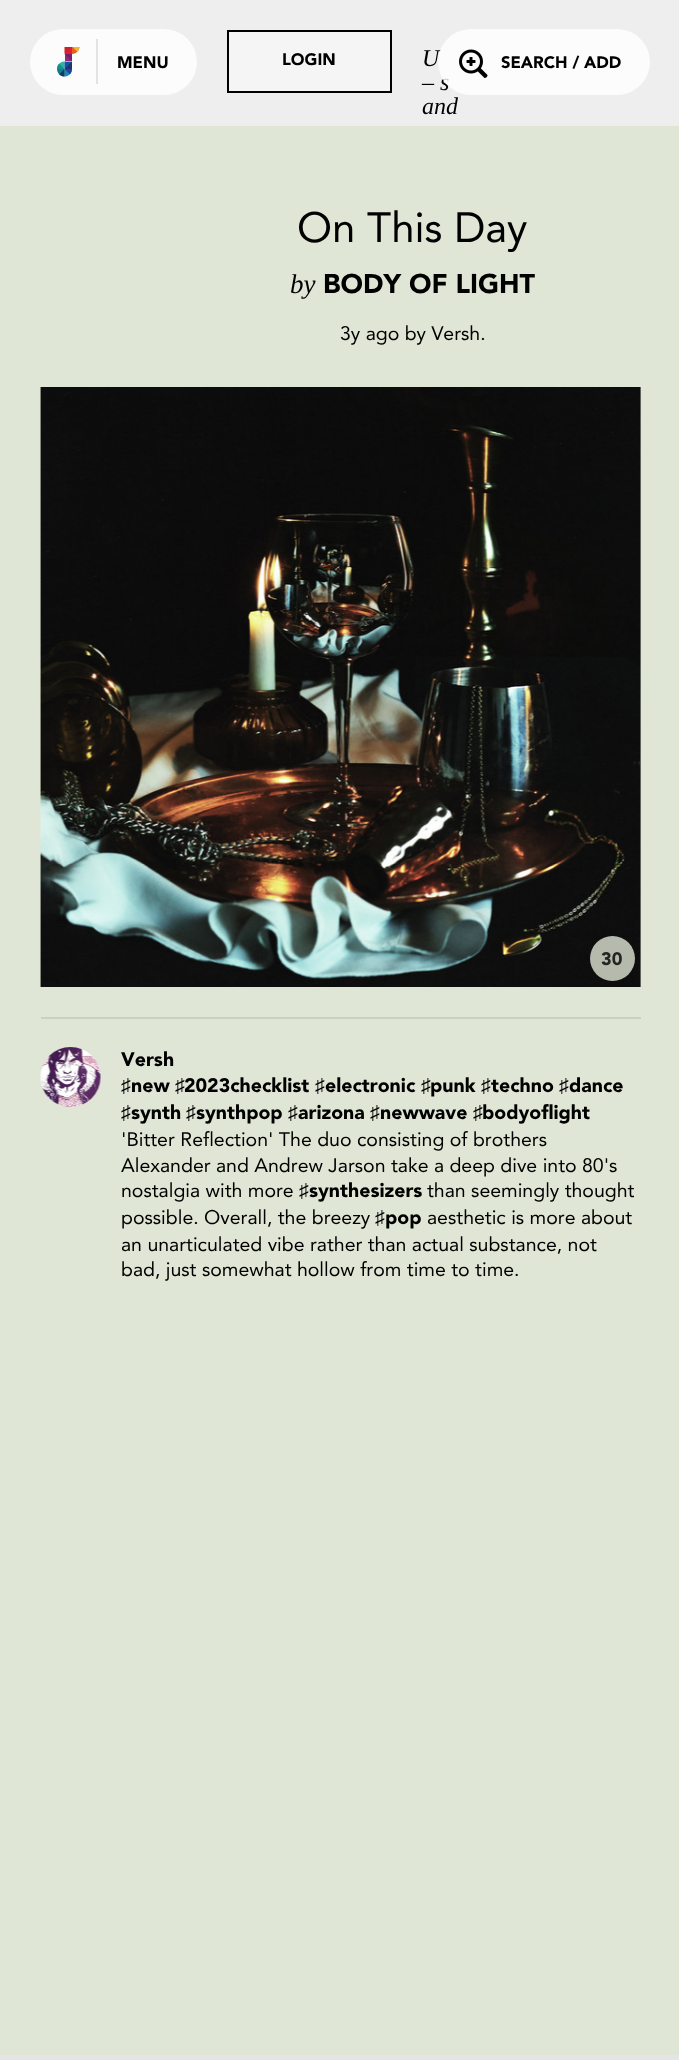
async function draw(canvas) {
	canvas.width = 679;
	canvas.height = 2060;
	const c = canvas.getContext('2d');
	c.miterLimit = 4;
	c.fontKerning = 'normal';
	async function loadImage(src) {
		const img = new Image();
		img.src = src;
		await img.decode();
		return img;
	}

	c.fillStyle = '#e0e6d5';
	c.fillRect(0, 0, 679, 2060);
	c.fillStyle = '#eee';
	c.fillRect(0, 0, 679, 126);
	c.fillStyle = '#fcfcfc';
	c.beginPath();
	c.roundRect(30, 29, 167, 66, 33);
	c.fill();
	c.drawImage(await loadImage('img1.png'), 57, 47, 23, 30);
	c.fillStyle = '#e3e3e3';
	c.fillRect(96, 39, 2, 45);
	c.font = '900 16.5px Avenir';
	c.fillStyle = '#000';
	c.fillText('MENU', 117, 68);
	c.fillStyle = '#f5f5f5';
	c.beginPath();
	c.rect(228, 31, 163, 61);
	c.fill();
	c.strokeStyle = '#000';
	c.lineWidth = 2;
	c.stroke();
	c.fillStyle = '#000';
	c.fillText('LOGIN', 282, 65);
	c.font = 'italic 24px Liberation Serif';
	for (const [text, x, y] of [
		['U', 422, 66],
		['– s', 422, 90],
		['and', 422, 114],
	]) {
		c.fillText(text, x, y);
	}
	c.fillStyle = '#ffffffcc';
	c.beginPath();
	c.roundRect(438, 29, 212, 66, 33);
	c.fill();
	c.drawImage(await loadImage('img2.png'), 459, 49, 29, 29);
	c.font = '900 16.5px Avenir';
	c.fillStyle = '#000';
	c.fillText('SEARCH / ADD', 501, 68);
	c.font = '42px Avenir';
	c.fillText('On This Day', 297, 242);
	c.font = 'italic 27px Liberation Serif';
	c.fillText('by', 290, 293);
	c.font = '900 27px Avenir';
	c.fillText('BODY OF LIGHT', 323, 293);
	c.font = '19.5px Avenir';
	c.fillText('3y ago by Versh.', 340, 340);
	c.drawImage(await loadImage('img3.png'), 40, 387, 601, 600);
	c.fillStyle = '#e0e6d5cc';
	c.beginPath();
	c.arc(612.5, 958.5, 22.5, 0, 2 * Math.PI);
	c.fill();
	c.font = '900 18px Avenir';
	c.fillStyle = '#242523';
	c.fillText('30', 601, 965);
	c.fillStyle = '#cacfc0';
	c.fillRect(41, 1017, 600, 2);
	c.fillStyle = '#efe5ed';
	c.beginPath();
	c.arc(71, 1077, 30, 0, 2 * Math.PI);
	c.fill();
	c.drawImage(await loadImage('img4.png'), 40, 1047, 61, 60);
	c.font = '900 19.5px Avenir';
	c.fillStyle = '#000';
	c.fillText('Versh', 121, 1066);
	c.font = '19.5px Liberation Serif';
	c.fillText('♯', 121, 1092);
	c.font = '900 19.5px Avenir';
	c.fillText('new', 131, 1092);
	c.font = '19.5px Liberation Serif';
	c.fillText('♯', 175, 1092);
	c.font = '900 19.5px Avenir';
	c.fillText('2023checklist', 184, 1092);
	c.font = '19.5px Liberation Serif';
	c.fillText('♯', 315, 1092);
	c.font = '900 19.5px Avenir';
	c.fillText('electronic', 325, 1092);
	c.font = '19.5px Liberation Serif';
	c.fillText('♯', 421, 1092);
	c.font = '900 19.5px Avenir';
	c.fillText('punk', 430, 1092);
	c.font = '19.5px Liberation Serif';
	c.fillText('♯', 481, 1092);
	c.font = '900 19.5px Avenir';
	c.fillText('techno', 491, 1092);
	c.font = '19.5px Liberation Serif';
	c.fillText('♯', 559, 1092);
	c.font = '900 19.5px Avenir';
	c.fillText('dance', 569, 1092);
	c.font = '19.5px Liberation Serif';
	c.fillText('♯', 121, 1119);
	c.font = '900 19.5px Avenir';
	c.fillText('synth', 131, 1119);
	c.font = '19.5px Liberation Serif';
	c.fillText('♯', 186, 1119);
	c.font = '900 19.5px Avenir';
	c.fillText('synthpop', 196, 1119);
	c.font = '19.5px Liberation Serif';
	c.fillText('♯', 288, 1119);
	c.font = '900 19.5px Avenir';
	c.fillText('arizona', 298, 1119);
	c.font = '19.5px Liberation Serif';
	c.fillText('♯', 370, 1119);
	c.font = '900 19.5px Avenir';
	c.fillText('newwave', 380, 1119);
	c.font = '19.5px Liberation Serif';
	c.fillText('♯', 473, 1119);
	c.font = '900 19.5px Avenir';
	c.fillText('bodyoflight', 482, 1119);
	c.font = '19.5px Avenir';
	for (const [text, x, y] of [
		['\'Bitter Reflection\' The duo consisting of brothers', 121, 1146],
		['Alexander and Andrew Jarson take a deep dive into 80\'s', 121, 1172],
		['nostalgia with more', 121, 1197],
	]) {
		c.fillText(text, x, y);
	}
	c.font = '19.5px Liberation Serif';
	c.fillText('♯', 299, 1197);
	c.font = '900 19.5px Avenir';
	c.fillText('synthesizers', 309, 1197);
	c.font = '19.5px Avenir';
	c.fillText('than seemingly thought', 427, 1197);
	c.fillText('possible. Overall, the breezy', 121, 1224);
	c.font = '19.5px Liberation Serif';
	c.fillText('♯', 375, 1224);
	c.font = '900 19.5px Avenir';
	c.fillText('pop', 385, 1224);
	c.font = '19.5px Avenir';
	for (const [text, x, y] of [
		['aesthetic is more about', 427, 1224],
		['an unarticulated vibe rather than actual substance, not', 121, 1251],
		['bad, just somewhat hollow from time to time.', 121, 1276],
	]) {
		c.fillText(text, x, y);
	}
	c.fillStyle = '#e5e5e5';
	c.fillRect(0, 2055, 679, 5);
}

draw(document.querySelector('canvas'));
